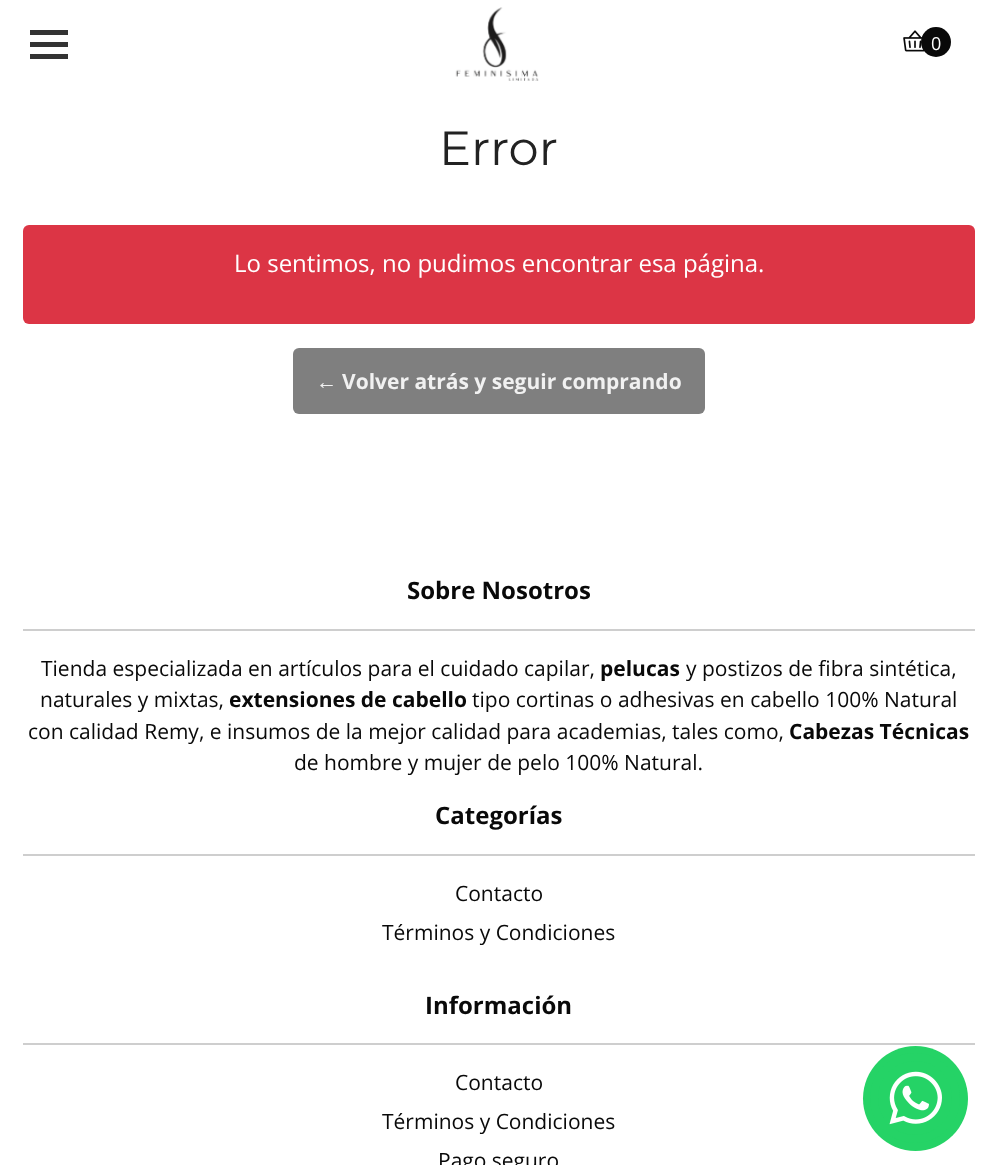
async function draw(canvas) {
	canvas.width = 997;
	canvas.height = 1165;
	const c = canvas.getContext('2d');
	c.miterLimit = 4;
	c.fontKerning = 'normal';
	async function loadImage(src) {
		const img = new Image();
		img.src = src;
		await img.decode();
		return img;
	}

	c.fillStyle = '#fff';
	c.fillRect(0, 0, 997, 1165);
	for (const [x, y, w, h, color] of [
		[30, 30, 38, 5, '#333'],
		[30, 42, 38, 5, '#333'],
		[30, 54, 38, 5, '#333'],
	]) {
		c.fillStyle = color;
		c.fillRect(x, y, w, h);
	}
	c.drawImage(await loadImage('img1.png'), 455, 7, 84, 74);
	c.drawImage(await loadImage('img2.png'), 903, 30, 22, 22);
	c.fillStyle = '#090909';
	c.beginPath();
	c.arc(936, 42, 15, 0, 2 * Math.PI);
	c.fill();
	c.font = '18px Open Sans';
	c.fillStyle = '#fff';
	c.fillText('0', 931, 50);
	c.font = '48px Montserrat';
	c.fillStyle = '#222';
	c.fillText('Error', 439, 165);
	c.fillStyle = '#dc3545';
	c.beginPath();
	c.roundRect(23, 225, 952, 99, 6);
	c.fill();
	c.font = '24px Open Sans';
	c.fillStyle = '#fff';
	c.fillText('Lo sentimos, no pudimos encontrar esa página.', 234, 272);
	c.fillStyle = '#7f7f7f';
	c.beginPath();
	c.roundRect(293, 348, 412, 66, 6);
	c.fill();
	c.font = 'bold 21px Liberation Serif';
	c.fillStyle = '#f1f1f1';
	c.fillText('←', 316, 389);
	c.font = 'bold 21px Open Sans';
	c.fillText('Volver atrás y seguir comprando', 342, 389);
	c.fillStyle = '#cecece';
	c.fillRect(23, 629, 952, 2);
	c.font = 'bold 24px Open Sans';
	c.fillStyle = '#090909';
	c.fillText('Sobre Nosotros', 407, 599);
	c.font = '21px Open Sans';
	c.fillText('Tienda especializada en artículos para el cuidado capilar,', 41, 676);
	c.font = 'bold 21px Open Sans';
	c.fillText('pelucas', 600, 676);
	c.font = '21px Open Sans';
	c.fillText('y postizos de fibra sintética,', 686, 676);
	c.fillText('naturales y mixtas,', 40, 707);
	c.font = 'bold 21px Open Sans';
	c.fillText('extensiones de cabello', 229, 707);
	c.font = '21px Open Sans';
	c.fillText('tipo cortinas o adhesivas en cabello 100% Natural', 472, 707);
	c.fillText('con calidad Remy, e insumos de la mejor calidad para academias, tales como,', 28, 739);
	c.font = 'bold 21px Open Sans';
	c.fillText('Cabezas Técnicas', 789, 739);
	c.font = '21px Open Sans';
	c.fillText('de hombre y mujer de pelo 100% Natural.', 294, 770);
	c.fillStyle = '#cecece';
	c.fillRect(23, 854, 952, 2);
	c.font = 'bold 24px Open Sans';
	c.fillStyle = '#090909';
	c.fillText('Categorías', 435, 824);
	c.font = '21px Open Sans';
	c.fillText('Contacto', 455, 901);
	c.fillText('Términos y Condiciones', 382, 940);
	c.fillStyle = '#cecece';
	c.fillRect(23, 1043, 952, 2);
	c.font = 'bold 24px Open Sans';
	c.fillStyle = '#090909';
	c.fillText('Información', 425, 1014);
	c.font = '21px Open Sans';
	for (const [text, x, y] of [
		['Contacto', 455, 1090],
		['Términos y Condiciones', 382, 1129],
		['Pago seguro', 438, 1168],
	]) {
		c.fillText(text, x, y);
	}
	c.fillStyle = '#25d366';
	c.beginPath();
	c.arc(915.5, 1098.5, 52.5, 0, 2 * Math.PI);
	c.fill();
	c.drawImage(await loadImage('img3.png'), 889, 1071, 53, 54);
	c.beginPath();
	c.arc(915, 1098, 41, 0, 2 * Math.PI);
	c.strokeStyle = '#25d366';
	c.lineWidth = 8;
	c.stroke();
}

draw(document.querySelector('canvas'));
